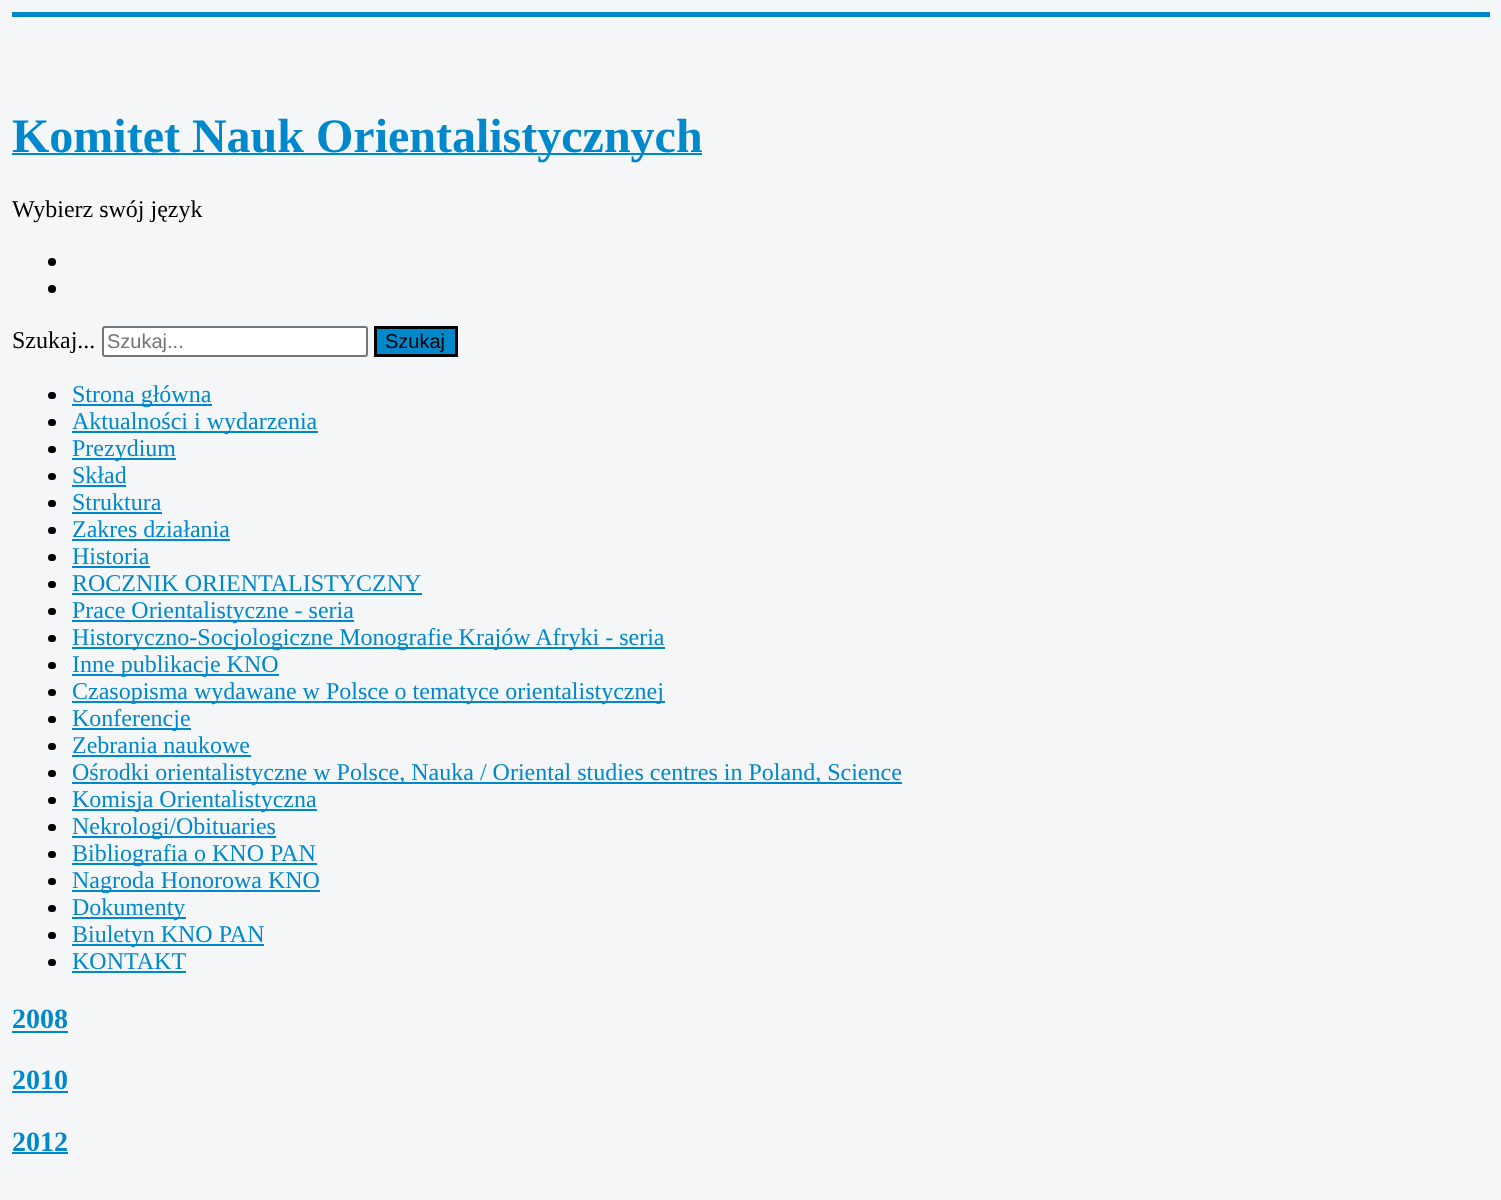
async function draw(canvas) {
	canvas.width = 1501;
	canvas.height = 1200;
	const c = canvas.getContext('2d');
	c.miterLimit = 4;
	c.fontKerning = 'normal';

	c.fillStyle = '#f4f6f7';
	c.fillRect(0, 0, 1501, 1200);
	c.fillStyle = '#08c';
	c.fillRect(12, 12, 1478, 5);
	c.fillRect(12, 153, 690, 2);
	c.font = 'bold 48px Liberation Serif';
	c.fillText('Komitet Nauk Orientalistycznych', 12, 152);
	c.font = '24px Liberation Serif';
	c.fillStyle = '#000';
	c.fillText('Wybierz swój język', 12, 217);
	c.beginPath();
	c.arc(52, 262, 4, 0, 2 * Math.PI);
	c.fill();
	c.beginPath();
	c.arc(52, 289, 4, 0, 2 * Math.PI);
	c.fill();
	c.fillText('Szukaj...', 12, 348);
	c.fillStyle = '#fff';
	c.beginPath();
	c.roundRect(103, 327, 264, 29, 2);
	c.fill();
	c.strokeStyle = '#767676';
	c.lineWidth = 2;
	c.stroke();
	c.font = '20px Liberation Sans';
	c.fillStyle = '#757575';
	c.fillText('Szukaj...', 107, 348);
	c.fillStyle = '#08c';
	c.beginPath();
	c.rect(375.5, 327.5, 81, 28);
	c.fill();
	c.strokeStyle = '#000';
	c.lineWidth = 3;
	c.stroke();
	c.fillStyle = '#000';
	c.fillText('Szukaj', 385, 348);
	c.beginPath();
	c.roundRect(48, 392, 8, 7, 3.5);
	c.fill();
	c.fillStyle = '#08c';
	c.fillRect(72, 404, 140, 2);
	c.font = '24px Liberation Serif';
	c.fillText('Strona główna', 72, 402);
	c.fillStyle = '#000';
	c.beginPath();
	c.roundRect(48, 419, 8, 7, 3.5);
	c.fill();
	c.fillStyle = '#08c';
	c.fillRect(72, 431, 246, 2);
	c.fillText('Aktualności i wydarzenia', 72, 429);
	c.fillStyle = '#000';
	c.beginPath();
	c.roundRect(48, 446, 8, 7, 3.5);
	c.fill();
	c.fillStyle = '#08c';
	c.fillRect(72, 458, 104, 2);
	c.fillText('Prezydium', 72, 456);
	c.fillStyle = '#000';
	c.beginPath();
	c.roundRect(48, 473, 8, 7, 3.5);
	c.fill();
	c.fillStyle = '#08c';
	c.fillText('Skład', 72, 483);
	c.fillRect(72, 485, 54, 2);
	c.fillStyle = '#000';
	c.beginPath();
	c.roundRect(48, 500, 8, 7, 3.5);
	c.fill();
	c.fillStyle = '#08c';
	c.fillText('Struktura', 72, 510);
	c.fillRect(72, 512, 90, 2);
	c.fillStyle = '#000';
	c.beginPath();
	c.roundRect(48, 527, 8, 7, 3.5);
	c.fill();
	c.fillStyle = '#08c';
	c.fillText('Zakres działania', 72, 537);
	c.fillRect(72, 539, 158, 2);
	c.fillStyle = '#000';
	c.beginPath();
	c.roundRect(48, 554, 8, 7, 3.5);
	c.fill();
	c.fillStyle = '#08c';
	c.fillText('Historia', 72, 564);
	c.fillRect(72, 566, 78, 2);
	c.fillStyle = '#000';
	c.beginPath();
	c.roundRect(48, 581, 8, 7, 3.5);
	c.fill();
	c.fillStyle = '#08c';
	c.fillText('ROCZNIK ORIENTALISTYCZNY', 72, 591);
	c.fillRect(72, 593, 350, 2);
	c.fillStyle = '#000';
	c.beginPath();
	c.roundRect(48, 608, 8, 7, 3.5);
	c.fill();
	c.fillStyle = '#08c';
	c.fillRect(72, 620, 282, 2);
	c.fillText('Prace Orientalistyczne - seria', 72, 618);
	c.fillStyle = '#000';
	c.beginPath();
	c.roundRect(48, 635, 8, 7, 3.5);
	c.fill();
	c.fillStyle = '#08c';
	c.fillRect(72, 647, 593, 2);
	c.fillText('Historyczno-Socjologiczne Monografie Krajów Afryki - seria', 72, 645);
	c.fillStyle = '#000';
	c.beginPath();
	c.roundRect(48, 662, 8, 7, 3.5);
	c.fill();
	c.fillStyle = '#08c';
	c.fillRect(72, 674, 207, 2);
	c.fillText('Inne publikacje KNO', 72, 672);
	c.fillStyle = '#000';
	c.beginPath();
	c.roundRect(48, 689, 8, 7, 3.5);
	c.fill();
	c.fillStyle = '#08c';
	c.fillRect(72, 701, 593, 2);
	c.fillText('Czasopisma wydawane w Polsce o tematyce orientalistycznej', 72, 699);
	c.fillStyle = '#000';
	c.beginPath();
	c.roundRect(48, 716, 8, 7, 3.5);
	c.fill();
	c.fillStyle = '#08c';
	c.fillRect(72, 728, 119, 2);
	c.fillText('Konferencje', 72, 726);
	c.fillStyle = '#000';
	c.beginPath();
	c.roundRect(48, 743, 8, 7, 3.5);
	c.fill();
	c.fillStyle = '#08c';
	c.fillText('Zebrania naukowe', 72, 753);
	c.fillRect(72, 755, 179, 2);
	c.fillStyle = '#000';
	c.beginPath();
	c.roundRect(48, 770, 8, 7, 3.5);
	c.fill();
	c.fillStyle = '#08c';
	c.fillRect(72, 782, 830, 2);
	c.fillText('Ośrodki orientalistyczne w Polsce, Nauka / Oriental studies centres in Poland, Science', 72, 780);
	c.fillStyle = '#000';
	c.beginPath();
	c.roundRect(48, 797, 8, 7, 3.5);
	c.fill();
	c.fillStyle = '#08c';
	c.fillRect(72, 809, 245, 2);
	c.fillText('Komisja Orientalistyczna', 72, 807);
	c.fillStyle = '#000';
	c.beginPath();
	c.roundRect(48, 824, 8, 7, 3.5);
	c.fill();
	c.fillStyle = '#08c';
	c.fillRect(72, 836, 204, 2);
	c.fillText('Nekrologi/Obituaries', 72, 834);
	c.fillStyle = '#000';
	c.beginPath();
	c.roundRect(48, 851, 8, 7, 3.5);
	c.fill();
	c.fillStyle = '#08c';
	c.fillRect(72, 863, 245, 2);
	c.fillText('Bibliografia o KNO PAN', 72, 861);
	c.fillStyle = '#000';
	c.beginPath();
	c.roundRect(48, 878, 8, 7, 3.5);
	c.fill();
	c.fillStyle = '#08c';
	c.fillRect(72, 890, 248, 2);
	c.fillText('Nagroda Honorowa KNO', 72, 888);
	c.fillStyle = '#000';
	c.beginPath();
	c.roundRect(48, 905, 8, 7, 3.5);
	c.fill();
	c.fillStyle = '#08c';
	c.fillRect(72, 917, 114, 2);
	c.fillText('Dokumenty', 72, 915);
	c.fillStyle = '#000';
	c.beginPath();
	c.roundRect(48, 932, 8, 7, 3.5);
	c.fill();
	c.fillStyle = '#08c';
	c.fillRect(72, 944, 192, 2);
	c.fillText('Biuletyn KNO PAN', 72, 942);
	c.fillStyle = '#000';
	c.beginPath();
	c.roundRect(48, 959, 8, 7, 3.5);
	c.fill();
	c.fillStyle = '#08c';
	c.fillText('KONTAKT', 72, 969);
	c.fillRect(72, 971, 114, 2);
	c.font = 'bold 28px Liberation Serif';
	c.fillText('2008', 12, 1028);
	c.fillRect(12, 1031, 56, 2);
	c.fillText('2010', 12, 1089);
	c.fillRect(12, 1091, 56, 2);
	c.fillText('2012', 12, 1151);
	c.fillRect(12, 1152, 56, 2);
}

draw(document.querySelector('canvas'));
